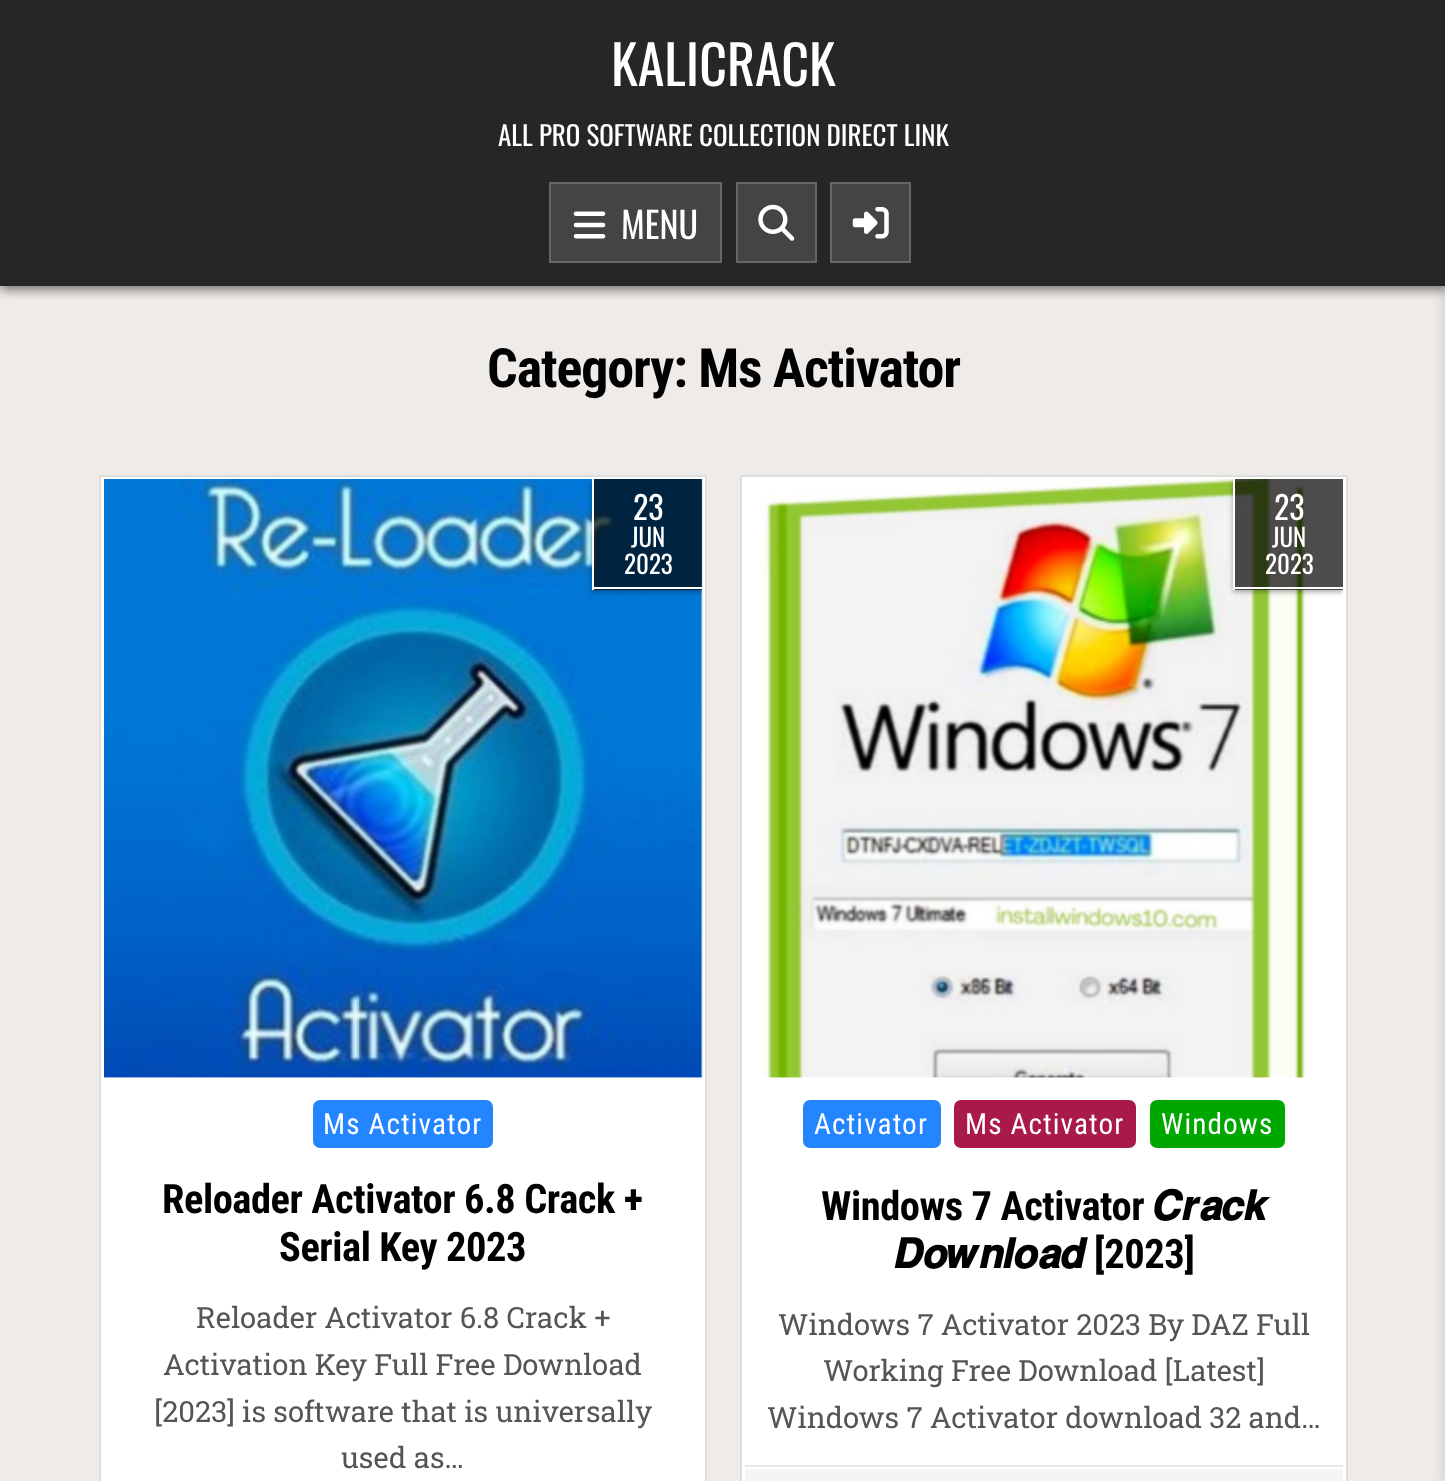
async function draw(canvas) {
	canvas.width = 1445;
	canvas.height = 1481;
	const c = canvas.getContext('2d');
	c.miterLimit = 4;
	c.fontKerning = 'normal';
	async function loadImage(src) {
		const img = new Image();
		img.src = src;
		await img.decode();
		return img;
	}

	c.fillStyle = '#efebe9';
	c.fillRect(0, 0, 1445, 1481);
	c.fillStyle = '#00000080';
	c.filter = 'blur(5.5px)';
	c.beginPath();
	c.rect(0, 5, 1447, 285);
	c.fill();
	c.filter = 'none';
	c.fillStyle = '#262626';
	c.fillRect(0, 0, 1445, 286);
	c.font = '54px Oswald';
	c.fillStyle = '#fff';
	c.fillText('KALICRACK', 611, 86);
	c.font = '27px Oswald';
	c.fillText('ALL PRO SOFTWARE COLLECTION DIRECT LINK', 498, 146);
	c.fillStyle = '#444';
	c.beginPath();
	c.rect(550, 183, 171, 79);
	c.fill();
	c.strokeStyle = '#666';
	c.lineWidth = 2;
	c.stroke();
	c.drawImage(await loadImage('img1.png'), 573, 211, 33, 28);
	c.font = '36px Oswald';
	c.fillStyle = '#fff';
	c.fillText('MENU', 621, 239);
	c.fillStyle = '#444';
	c.beginPath();
	c.rect(737, 183, 79, 79);
	c.fill();
	c.stroke();
	c.drawImage(await loadImage('img2.png'), 758, 204, 37, 37);
	c.beginPath();
	c.rect(831, 183, 79, 79);
	c.fill();
	c.stroke();
	c.drawImage(await loadImage('img3.png'), 852, 207, 37, 32);
	c.letterSpacing = '-1.1px';
	c.font = 'bold 54px Roboto Condensed';
	c.fillStyle = '#000';
	c.fillText('Category: Ms Activator', 487, 387);
	c.fillStyle = '#fff';
	c.beginPath();
	c.rect(100, 476, 606, 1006);
	c.fill();
	c.strokeStyle = '#ddd';
	c.stroke();
	c.drawImage(await loadImage('img4.png'), 104, 479, 599, 599);
	c.save();
	c.beginPath();
	c.rect(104, 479, 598, 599);
	c.clip();
	c.beginPath();
	c.moveTo(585, 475);
	c.lineTo(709, 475);
	c.lineTo(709, 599);
	c.lineTo(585, 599);
	c.closePath();
	c.moveTo(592, 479);
	c.lineTo(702, 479);
	c.lineTo(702, 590);
	c.lineTo(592, 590);
	c.closePath();
	c.clip('evenodd');
	c.fillStyle = '#0000003d';
	c.filter = 'blur(2px)';
	c.beginPath();
	c.rect(592, 482, 110, 110);
	c.fill();
	c.filter = 'none';
	c.restore();
	c.save();
	c.beginPath();
	c.rect(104, 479, 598, 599);
	c.clip();
	c.beginPath();
	c.moveTo(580, 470);
	c.lineTo(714, 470);
	c.lineTo(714, 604);
	c.lineTo(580, 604);
	c.closePath();
	c.moveTo(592, 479);
	c.lineTo(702, 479);
	c.lineTo(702, 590);
	c.lineTo(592, 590);
	c.closePath();
	c.clip('evenodd');
	c.fillStyle = '#0000001f';
	c.filter = 'blur(3.5px)';
	c.beginPath();
	c.rect(592, 482, 110, 110);
	c.fill();
	c.filter = 'none';
	c.restore();
	for (const [x, y, w, h, color] of [
		[594, 479, 108, 111, '#000000b3'],
		[592, 587, 110, 2, '#fff'],
		[592, 479, 2, 111, '#fff'],
	]) {
		c.fillStyle = color;
		c.fillRect(x, y, w, h);
	}
	c.letterSpacing = '0px';
	c.font = '32px Oswald';
	c.fillText('23', 633, 520);
	c.font = '25px Oswald';
	c.fillText('JUN', 631, 547);
	c.fillText('2023', 624, 574);
	c.fillStyle = '#2385ff';
	c.beginPath();
	c.roundRect(313, 1100, 180, 48, 7);
	c.fill();
	c.letterSpacing = '1.1px';
	c.font = '29.25px Roboto Condensed';
	c.fillStyle = '#fff';
	c.fillText('Ms Activator', 323, 1134);
	c.letterSpacing = '-0.45px';
	c.font = 'bold 40.5px Roboto Condensed';
	c.fillStyle = '#000';
	c.fillText('Reloader Activator 6.8 Crack +', 162, 1213);
	c.fillText('Serial Key 2023', 279, 1261);
	c.letterSpacing = '0px';
	c.font = '29.25px Roboto Slab';
	c.fillStyle = '#555';
	for (const [text, x, y] of [
		['Reloader Activator 6.8 Crack +', 196, 1328],
		['Activation Key Full Free Download', 163, 1375],
		['[2023] is software that is universally', 154, 1422],
		['used as…', 341, 1468],
	]) {
		c.fillText(text, x, y);
	}
	c.fillStyle = '#fff';
	c.beginPath();
	c.rect(741, 476, 606, 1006);
	c.fill();
	c.stroke();
	c.drawImage(await loadImage('img5.png'), 761, 479, 545, 599);
	c.save();
	c.beginPath();
	c.rect(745, 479, 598, 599);
	c.clip();
	c.beginPath();
	c.moveTo(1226, 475);
	c.lineTo(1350, 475);
	c.lineTo(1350, 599);
	c.lineTo(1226, 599);
	c.closePath();
	c.moveTo(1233, 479);
	c.lineTo(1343, 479);
	c.lineTo(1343, 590);
	c.lineTo(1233, 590);
	c.closePath();
	c.clip('evenodd');
	c.fillStyle = '#0000003d';
	c.filter = 'blur(2px)';
	c.beginPath();
	c.rect(1233, 482, 110, 110);
	c.fill();
	c.filter = 'none';
	c.restore();
	c.save();
	c.beginPath();
	c.rect(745, 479, 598, 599);
	c.clip();
	c.beginPath();
	c.moveTo(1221, 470);
	c.lineTo(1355, 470);
	c.lineTo(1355, 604);
	c.lineTo(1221, 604);
	c.closePath();
	c.moveTo(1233, 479);
	c.lineTo(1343, 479);
	c.lineTo(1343, 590);
	c.lineTo(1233, 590);
	c.closePath();
	c.clip('evenodd');
	c.fillStyle = '#0000001f';
	c.filter = 'blur(3.5px)';
	c.beginPath();
	c.rect(1233, 482, 110, 110);
	c.fill();
	c.filter = 'none';
	c.restore();
	for (const [x, y, w, h, color] of [
		[1235, 479, 108, 111, '#000000b3'],
		[1233, 587, 110, 2, '#fff'],
		[1233, 479, 2, 111, '#fff'],
	]) {
		c.fillStyle = color;
		c.fillRect(x, y, w, h);
	}
	c.font = '32px Oswald';
	c.fillText('23', 1274, 520);
	c.font = '25px Oswald';
	c.fillText('JUN', 1272, 547);
	c.fillText('2023', 1265, 574);
	c.fillStyle = '#2385ff';
	c.beginPath();
	c.roundRect(803, 1100, 138, 48, 7);
	c.fill();
	c.letterSpacing = '1.1px';
	c.font = '29.25px Roboto Condensed';
	c.fillStyle = '#fff';
	c.fillText('Activator', 814, 1134);
	c.fillStyle = '#a91a4b';
	c.beginPath();
	c.roundRect(954, 1100, 182, 48, 7);
	c.fill();
	c.fillStyle = '#fff';
	c.fillText('Ms Activator', 965, 1134);
	c.fillStyle = '#00a700';
	c.beginPath();
	c.roundRect(1150, 1100, 135, 48, 7);
	c.fill();
	c.fillStyle = '#fff';
	c.fillText('Windows', 1161, 1134);
	c.letterSpacing = '-0.45px';
	c.font = 'bold 40.5px Roboto Condensed';
	c.fillStyle = '#000';
	c.fillText('Windows 7 Activator', 821, 1220);
	c.font = 'bold 40.5px FreeSans';
	c.fillText('𝑪𝒓𝒂𝒄𝒌', 1153, 1220);
	c.fillText('𝑫𝒐𝒘𝒏𝒍𝒐𝒂𝒅', 894, 1268);
	c.font = 'bold 40.5px Roboto Condensed';
	c.fillText('[2023]', 1094, 1268);
	c.letterSpacing = '0px';
	c.font = '29.25px Roboto Slab';
	c.fillStyle = '#555';
	for (const [text, x, y] of [
		['Windows 7 Activator 2023 By DAZ Full', 778, 1335],
		['Working Free Download [Latest]', 823, 1381],
		['Windows 7 Activator download 32 and…', 767, 1428],
	]) {
		c.fillText(text, x, y);
	}
	c.fillStyle = '#f5f5f5';
	c.fillRect(745, 1469, 598, 12);
	c.fillStyle = '#e8e8e8';
	c.fillRect(745, 1465, 598, 2);
	c.fillStyle = '#0000001a';
	c.filter = 'blur(5.5px)';
	c.beginPath();
	c.rect(1442, 0, 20, 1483);
	c.fill();
	c.filter = 'none';
}

draw(document.querySelector('canvas'));
